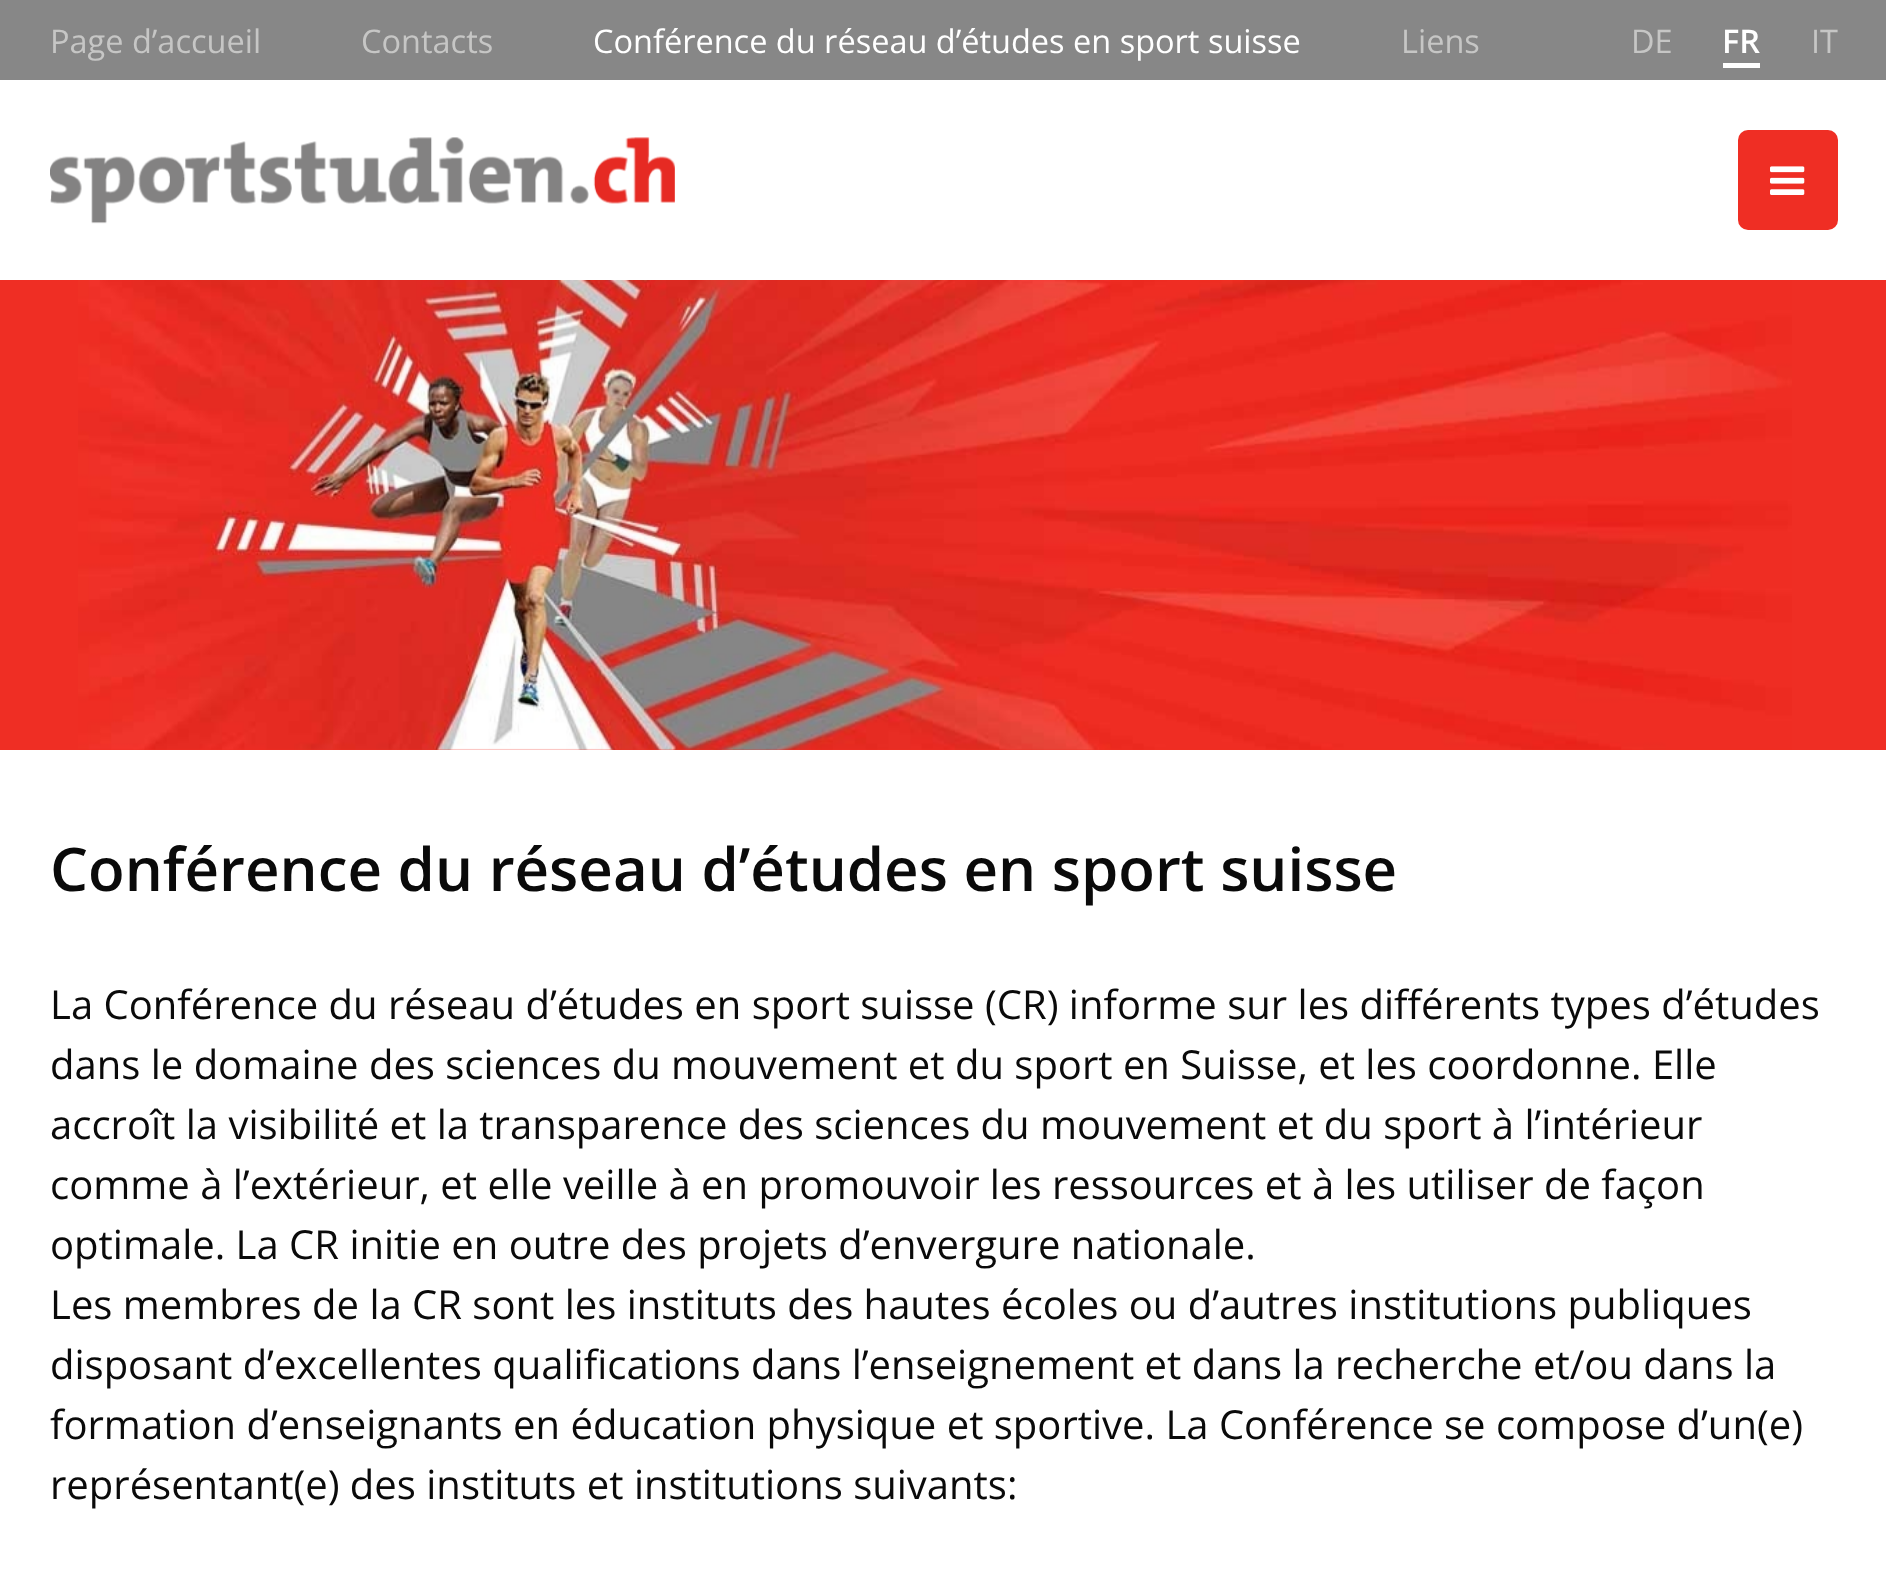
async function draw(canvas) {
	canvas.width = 1886;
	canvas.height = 1588;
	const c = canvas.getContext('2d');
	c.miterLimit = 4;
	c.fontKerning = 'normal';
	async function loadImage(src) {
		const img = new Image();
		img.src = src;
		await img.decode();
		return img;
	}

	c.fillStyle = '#fff';
	c.fillRect(0, 0, 1886, 1588);
	c.fillStyle = '#878787';
	c.fillRect(0, 0, 1886, 80);
	c.font = '32.5px Open Sans';
	c.fillStyle = '#c6c6c5';
	c.fillText('Page d’accueil', 50, 53);
	c.fillText('Contacts', 361, 53);
	c.fillStyle = '#fff';
	c.fillText('Conférence du réseau d’études en sport suisse', 593, 53);
	c.fillStyle = '#c6c6c5';
	c.fillText('Liens', 1401, 53);
	c.fillText('DE', 1631, 53);
	c.font = '600 32.5px Open Sans';
	c.fillStyle = '#fff';
	c.fillText('FR', 1722, 53);
	c.fillRect(1723, 63, 37, 5);
	c.font = '32.5px Open Sans';
	c.fillStyle = '#c6c6c5';
	c.fillText('IT', 1811, 53);
	c.drawImage(await loadImage('img1.png'), 50, 137, 625, 87);
	c.fillStyle = '#ef2e24';
	c.beginPath();
	c.roundRect(1738, 130, 100, 100, 10);
	c.fill();
	c.drawImage(await loadImage('img2.png'), 1770, 166, 35, 29);
	c.fillRect(0, 280, 1886, 470);
	c.drawImage(await loadImage('img3.png'), 78, 280, 1714, 470);
	c.font = '600 60px Open Sans';
	c.fillStyle = '#0a0a0a';
	c.fillText('Conférence du réseau d’études en sport suisse', 50, 891);
	c.font = '40px Open Sans';
	for (const [text, x, y] of [
		['La Conférence du réseau d’études en sport suisse (CR) informe sur les différents types d’études', 50, 1019],
		['dans le domaine des sciences du mouvement et du sport en Suisse, et les coordonne. Elle', 50, 1079],
		['accroît la visibilité et la transparence des sciences du mouvement et du sport à l’intérieur', 50, 1139],
		['comme à l’extérieur, et elle veille à en promouvoir les ressources et à les utiliser de façon', 50, 1199],
		['optimale. La CR initie en outre des projets d’envergure nationale.', 50, 1259],
		['Les membres de la CR sont les instituts des hautes écoles ou d’autres institutions publiques', 50, 1319],
		['disposant d’excellentes qualifications dans l’enseignement et dans la recherche et/ou dans la', 50, 1379],
		['formation d’enseignants en éducation physique et sportive. La Conférence se compose d’un(e)', 50, 1439],
		['représentant(e) des instituts et institutions suivants:', 50, 1499],
	]) {
		c.fillText(text, x, y);
	}
}

draw(document.querySelector('canvas'));
